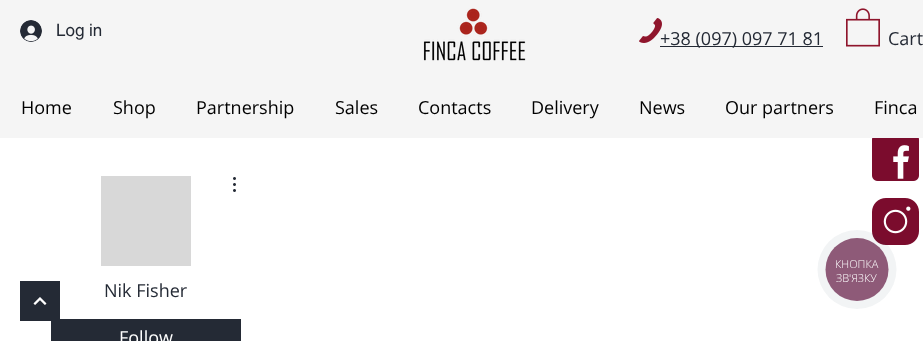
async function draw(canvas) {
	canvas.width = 923;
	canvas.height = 341;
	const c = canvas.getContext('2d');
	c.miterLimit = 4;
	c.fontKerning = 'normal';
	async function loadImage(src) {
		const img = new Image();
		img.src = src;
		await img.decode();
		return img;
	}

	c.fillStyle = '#fff';
	c.fillRect(0, 0, 923, 341);
	c.fillStyle = '#f5f5f5';
	c.fillRect(0, 0, 923, 138);
	c.drawImage(await loadImage('img1.png'), 20, 20, 22, 22);
	c.font = '17px helvetica';
	c.fillStyle = '#242a35';
	c.fillText('Log in', 56, 36);
	c.drawImage(await loadImage('img2.png'), 423, 8, 103, 53);
	c.drawImage(await loadImage('img3.png'), 639, 18, 23, 25);
	c.fillRect(660, 46, 163, 1);
	c.font = '18px Open Sans';
	c.fillText('+38 (097) 097 71 81', 660, 45);
	c.drawImage(await loadImage('img4.png'), 846, 8, 34, 39);
	c.fillText('Cart', 888, 45);
	c.fillStyle = '#000';
	for (const [text, x, y] of [
		['Home', 21, 114],
		['Shop', 113, 114],
		['Partnership', 196, 114],
		['Sales', 335, 114],
		['Contacts', 418, 114],
		['Delivery', 531, 114],
		['News', 639, 114],
		['Our partners', 725, 114],
		['Finca', 874, 114],
	]) {
		c.fillText(text, x, y);
	}
	c.drawImage(await loadImage('img5.png'), 872, 138, 47, 43);
	c.drawImage(await loadImage('img6.png'), 872, 198, 47, 47);
	c.fillStyle = '#242a35';
	c.fillRect(51, 319, 190, 22);
	c.fillRect(20, 281, 40, 40);
	c.drawImage(await loadImage('img7.png'), 33, 297, 14, 8);
	c.fillStyle = '#d8d8d8';
	c.fillRect(101, 176, 90, 90);
	c.drawImage(await loadImage('img8.png'), 233, 177, 3, 15);
	c.fillStyle = '#242a35';
	c.fillText('Nik Fisher', 104, 297);
	c.fillStyle = '#fff';
	c.fillText('Follow', 119, 344);
	c.fillStyle = '#2a405d0f';
	c.beginPath();
	c.arc(857, 269.5, 39.5, 0, 2 * Math.PI);
	c.fill();
	c.fillStyle = '#8e5a78';
	c.beginPath();
	c.arc(857, 269.5, 31.5, 0, 2 * Math.PI);
	c.fill();
	c.font = '300 11px Open Sans';
	c.fillStyle = '#fff';
	c.fillText('КНОПКА', 835, 268);
	c.fillText('ЗВ\'ЯЗКУ', 836, 282);
}

draw(document.querySelector('canvas'));
